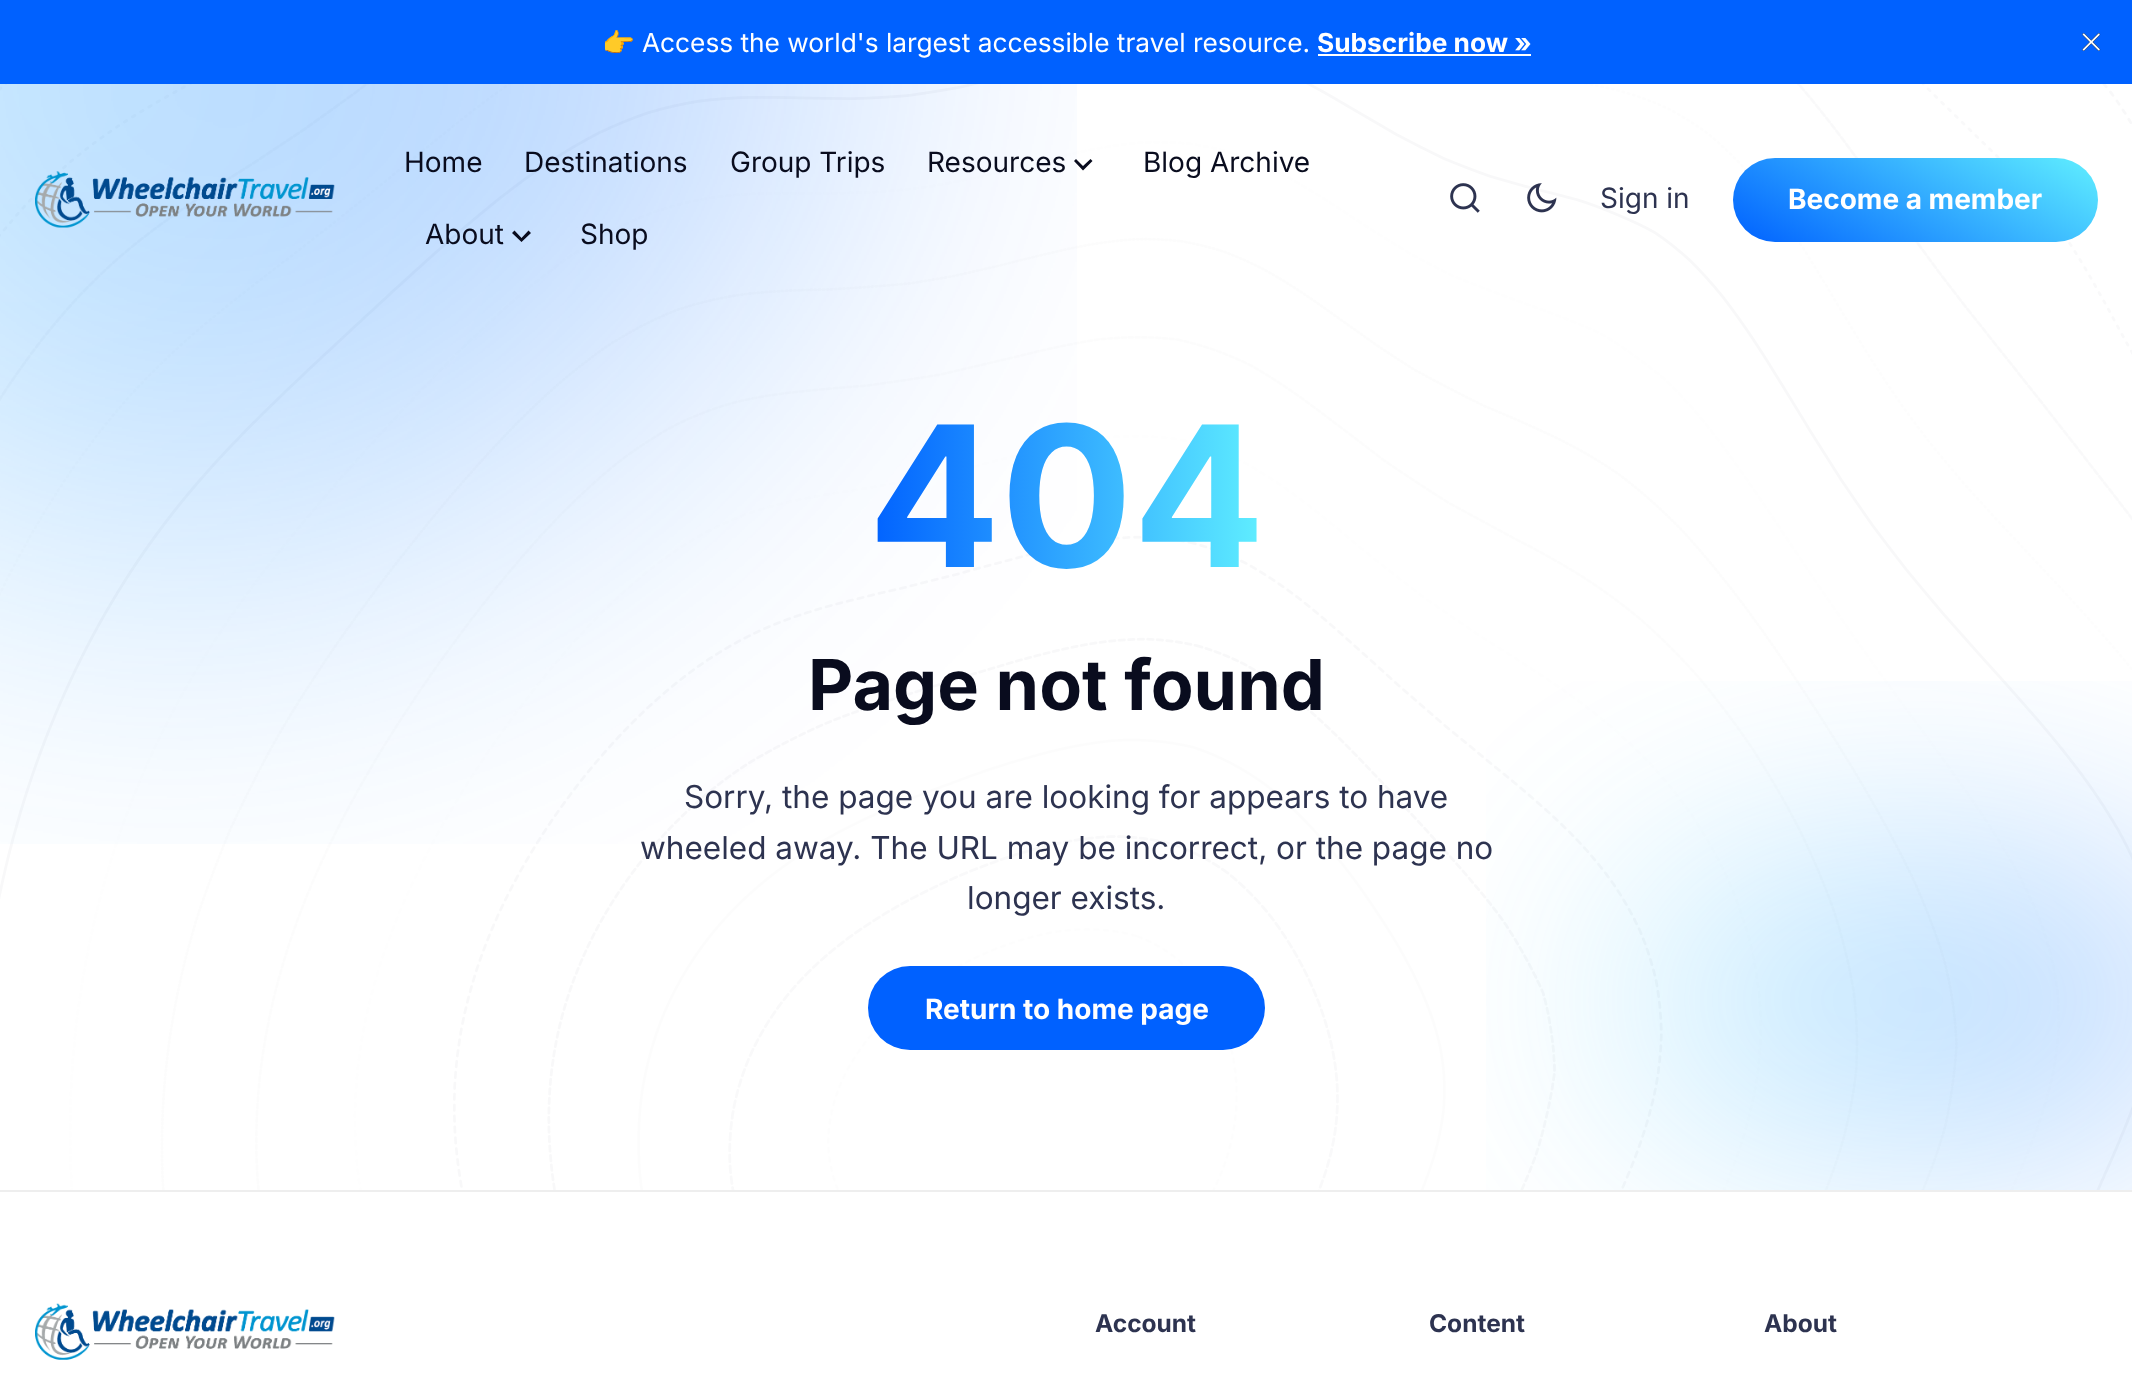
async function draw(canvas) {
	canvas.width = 2132;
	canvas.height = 1377;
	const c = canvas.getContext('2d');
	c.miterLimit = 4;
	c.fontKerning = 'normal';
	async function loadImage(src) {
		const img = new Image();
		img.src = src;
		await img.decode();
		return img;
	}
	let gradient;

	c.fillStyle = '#fff';
	c.fillRect(0, 0, 2132, 1377);
	c.fillStyle = '#0061ff';
	c.fillRect(0, 0, 2132, 84);
	c.font = '26.25px Noto Color Emoji';
	c.fillStyle = '#fff';
	c.fillText('👉', 602, 52);
	c.font = '26.25px Inter';
	c.fillText('Access the world\'s largest accessible travel resource.', 642, 52);
	c.font = 'bold 26.25px Inter';
	c.fillText('Subscribe now »', 1317, 52);
	c.fillRect(1318, 54, 213, 2);
	c.drawImage(await loadImage('img1.png'), 2082, 33, 19, 18);
	c.drawImage(await loadImage('img2.png'), 0, 84, 2132, 1106);
	c.drawImage(await loadImage('img3.png'), 0, 84, 1077, 760);
	c.drawImage(await loadImage('img4.png'), 1486, 681, 646, 509);
	c.drawImage(await loadImage('img5.png'), 35, 171, 300, 57);
	c.font = '28px Inter';
	c.fillStyle = '#090c1e';
	for (const [text, x, y] of [
		['Home', 404, 172],
		['Destinations', 524, 172],
		['Group Trips', 730, 172],
		['Resources', 927, 172],
	]) {
		c.fillText(text, x, y);
	}
	c.beginPath();
	c.moveTo(1083, 166);
	c.lineTo(1090.5, 159);
	c.lineTo(1092.5, 161);
	c.lineTo(1083, 170.5);
	c.lineTo(1074, 161);
	c.lineTo(1076, 159);
	c.closePath();
	c.fill();
	c.fillText('Blog Archive', 1143, 172);
	c.fillText('About', 425, 244);
	c.beginPath();
	c.moveTo(521.5, 238);
	c.lineTo(528.5, 230.5);
	c.lineTo(531, 233);
	c.lineTo(521.5, 242);
	c.lineTo(512, 233);
	c.lineTo(514.5, 230.5);
	c.closePath();
	c.fill();
	c.fillText('Shop', 580, 244);
	c.drawImage(await loadImage('img6.png'), 1450, 183, 30, 30);
	c.drawImage(await loadImage('img7.png'), 1527, 183, 30, 30);
	c.fillStyle = '#2d3350';
	c.fillText('Sign in', 1600, 208);
	gradient = c.createLinearGradient(1851, 310, 1979, 89);
	gradient.addColorStop(0, '#0061ff');
	gradient.addColorStop(1, '#60efff');
	c.fillStyle = gradient;
	c.beginPath();
	c.roundRect(1733, 158, 365, 84, 42);
	c.fill();
	c.font = 'bold 28px Inter';
	c.fillStyle = '#fff';
	c.fillText('Become a member', 1788, 209);
	c.font = 'bold 196px Inter';
	gradient = c.createLinearGradient(868, 496, 1265, 496);
	gradient.addColorStop(0, '#0061ff');
	gradient.addColorStop(1, '#60efff');
	c.fillStyle = gradient;
	c.fillText('404', 868, 567);
	c.font = 'bold 70px Inter';
	c.fillStyle = '#090c1e';
	c.fillText('Page not found', 808, 710);
	c.font = '31.5px Inter';
	c.fillStyle = '#2d3350';
	for (const [text, x, y] of [
		['Sorry, the page you are looking for appears to have', 684, 808],
		['wheeled away. The URL may be incorrect, or the page no', 640, 859],
		['longer exists.', 967, 909],
	]) {
		c.fillText(text, x, y);
	}
	c.fillStyle = '#0061ff';
	c.beginPath();
	c.roundRect(868, 966, 397, 84, 42);
	c.fill();
	c.font = 'bold 28px Inter';
	c.fillStyle = '#fff';
	c.fillText('Return to home page', 925, 1019);
	c.fillStyle = '#eee';
	c.fillRect(0, 1190, 2132, 2);
	c.drawImage(await loadImage('img8.png'), 35, 1303, 300, 57);
	c.font = 'bold 24.5px Inter';
	c.fillStyle = '#2d3350';
	for (const [text, x, y] of [
		['Account', 1095, 1332],
		['Content', 1429, 1332],
		['About', 1764, 1332],
	]) {
		c.fillText(text, x, y);
	}
}

draw(document.querySelector('canvas'));
